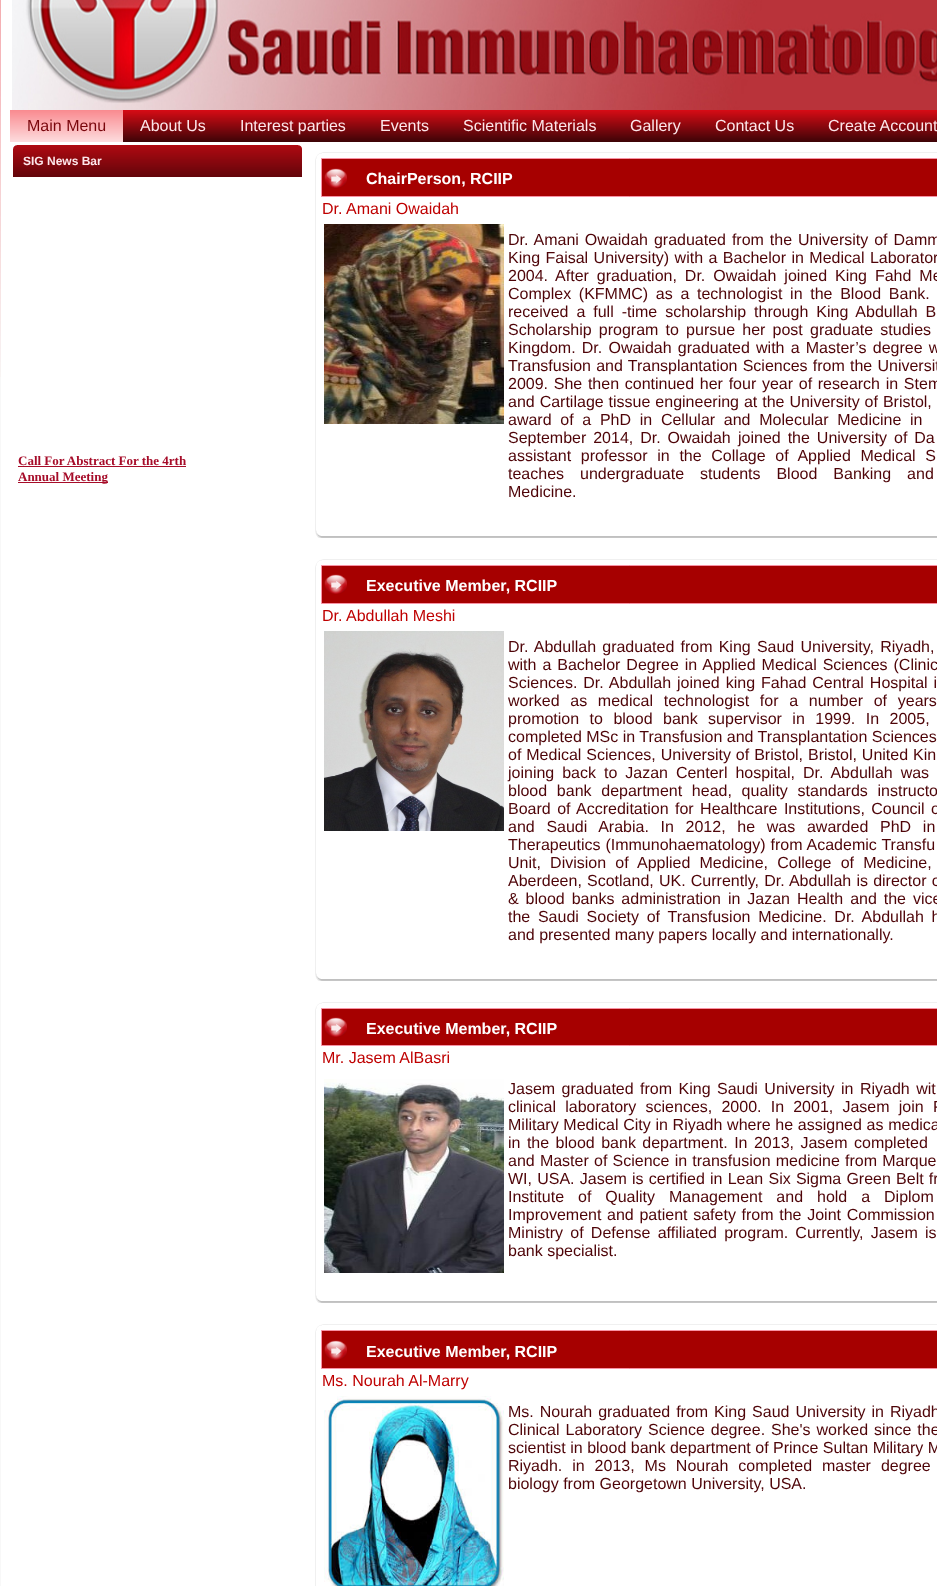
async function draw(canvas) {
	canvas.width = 937;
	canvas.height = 1586;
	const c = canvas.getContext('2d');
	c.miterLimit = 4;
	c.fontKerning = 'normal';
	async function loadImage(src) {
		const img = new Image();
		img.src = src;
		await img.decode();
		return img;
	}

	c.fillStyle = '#fff';
	c.fillRect(0, 0, 937, 1586);
	c.drawImage(await loadImage('img1.png'), 0, 0, 1, 377);
	c.drawImage(await loadImage('img2.png'), 0, 0, 33, 1586);
	c.drawImage(await loadImage('img3.png'), 12, 0, 925, 110);
	c.drawImage(await loadImage('img4.png'), 123, 110, 814, 32);
	c.drawImage(await loadImage('img5.png'), 10, 110, 113, 32);
	c.font = '16px Liberation Sans';
	c.fillStyle = '#79060c';
	c.fillText('Main Menu', 27, 131);
	c.fillStyle = '#fde7eb';
	for (const [text, x, y] of [
		['About Us', 140, 131],
		['Interest parties', 240, 131],
		['Events', 380, 131],
		['Scientific Materials', 463, 131],
		['Gallery', 630, 131],
		['Contact Us', 715, 131],
		['Create Account', 828, 131],
	]) {
		c.fillText(text, x, y);
	}
	c.drawImage(await loadImage('img6.png'), 13, 145, 285, 32);
	c.drawImage(await loadImage('img7.png'), 298, 145, 4, 32);
	c.font = 'bold 12px Liberation Sans';
	c.fillText('SIG News Bar', 23, 165);
	c.font = 'bold 13px Liberation Serif';
	c.fillStyle = '#a60c29';
	c.fillText('Call For Abstract For the 4rth', 18, 465);
	c.fillRect(18, 466, 168, 1);
	c.fillRect(18, 482, 90, 1);
	c.fillText('Annual Meeting', 18, 481);
	c.fillStyle = '#fff';
	c.fillRect(1, 0, 6, 1586);
	c.drawImage(await loadImage('img8.png'), 315, 152, 13, 13);
	c.fillStyle = '#f0f0f0';
	c.fillRect(328, 152, 609, 1);
	c.fillRect(315, 165, 1, 359);
	c.fillStyle = '#a60000';
	c.beginPath();
	c.rect(321.5, 158.5, 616, 38);
	c.fill();
	c.strokeStyle = '#f792a4';
	c.stroke();
	c.drawImage(await loadImage('img9.png'), 324, 168, 23, 20);
	c.font = 'bold 16px Liberation Sans';
	c.fillStyle = '#fff';
	c.fillText('ChairPerson, RCIIP', 366, 184);
	c.font = '16px Liberation Sans';
	c.fillStyle = '#bf0000';
	c.fillText('Dr. Amani Owaidah', 322, 214);
	c.drawImage(await loadImage('img10.png'), 324, 224, 180, 200);
	c.wordSpacing = '1.5px';
	c.fillStyle = '#4e0408';
	c.fillText('Dr. Amani Owaidah graduated from the University of Damm', 508, 245);
	c.wordSpacing = '1px';
	c.fillText('King Faisal University) with a Bachelor in Medical Laborator', 508, 263);
	c.wordSpacing = '3.5px';
	c.fillText('2004. After graduation, Dr. Owaidah joined King Fahd Me', 508, 281);
	c.wordSpacing = '3.25px';
	c.fillText('Complex (KFMMC) as a technologist in the Blood Bank.', 508, 299);
	c.wordSpacing = '3.5px';
	c.fillText('received a full -time scholarship through King Abdullah B', 508, 317);
	c.wordSpacing = '2.75px';
	c.fillText('Scholarship program to pursue her post graduate studies', 508, 335);
	c.wordSpacing = '1.75px';
	c.fillText('Kingdom. Dr. Owaidah graduated with a Master’s degree w', 508, 353);
	c.wordSpacing = '0.75px';
	c.fillText('Transfusion and Transplantation Sciences from the Universit', 508, 371);
	c.wordSpacing = '1.25px';
	c.fillText('2009. She then continued her four year of research in Stem', 508, 389);
	c.wordSpacing = '0.5px';
	c.fillText('and Cartilage tissue engineering at the University of Bristol,', 508, 407);
	c.wordSpacing = '4.25px';
	c.fillText('award of a PhD in Cellular and Molecular Medicine in', 508, 425);
	c.wordSpacing = '2.5px';
	c.fillText('September 2014, Dr. Owaidah', 508, 443);
	c.fillText('joined the University of Da', 738, 443);
	c.wordSpacing = '5.25px';
	c.fillText('assistant professor in the Collage of Applied Medical S', 508, 461);
	c.wordSpacing = '11.5px';
	c.fillText('teaches undergraduate students Blood Banking and', 508, 479);
	c.wordSpacing = '0px';
	c.fillText('Medicine.', 508, 497);
	c.drawImage(await loadImage('img11.png'), 315, 524, 13, 14);
	c.drawImage(await loadImage('img12.png'), 328, 536, 609, 2);
	c.drawImage(await loadImage('img8.png'), 315, 559, 13, 13);
	c.fillStyle = '#f0f0f0';
	c.fillRect(328, 559, 609, 1);
	c.fillRect(315, 572, 1, 395);
	c.fillStyle = '#a60000';
	c.beginPath();
	c.rect(321.5, 565.5, 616, 38);
	c.fill();
	c.stroke();
	c.drawImage(await loadImage('img9.png'), 324, 574, 23, 20);
	c.font = 'bold 16px Liberation Sans';
	c.fillStyle = '#fff';
	c.fillText('Executive Member, RCIIP', 366, 591);
	c.font = '16px Liberation Sans';
	c.fillStyle = '#bf0000';
	c.fillText('Dr. Abdullah Meshi', 322, 621);
	c.drawImage(await loadImage('img13.png'), 324, 631, 180, 200);
	c.wordSpacing = '1.75px';
	c.fillStyle = '#4e0408';
	c.fillText('Dr. Abdullah graduated from King Saud University, Riyadh,', 508, 652);
	c.wordSpacing = '1.5px';
	c.fillText('with a Bachelor Degree in Applied Medical Sciences (Clinic', 508, 670);
	c.fillText('Sciences. Dr. Abdullah joined king Fahad Central Hospital i', 508, 688);
	c.wordSpacing = '6.25px';
	c.fillText('worked as medical technologist for a number of years', 508, 706);
	c.wordSpacing = '6px';
	c.fillText('promotion to blood bank supervisor in 1999. In 2005,', 508, 724);
	c.wordSpacing = '0px';
	c.fillText('completed MSc in Transfusion and Transplantation Sciences', 508, 742);
	c.wordSpacing = '0.5px';
	c.fillText('of Medical Sciences, University of Bristol, Bristol, United Kin', 508, 760);
	c.wordSpacing = '3.5px';
	c.fillText('joining back to Jazan Centerl hospital, Dr. Abdullah was', 508, 778);
	c.wordSpacing = '5.25px';
	c.fillText('blood bank department head, quality standards instructo', 508, 796);
	c.wordSpacing = '2px';
	c.fillText('Board of Accreditation for Healthcare Institutions, Council o', 508, 814);
	c.wordSpacing = '7.25px';
	c.fillText('and Saudi Arabia. In 2012, he was awarded PhD in', 508, 832);
	c.wordSpacing = '0.5px';
	c.fillText('Therapeutics (Immunohaematology) from Academic Transfu', 508, 850);
	c.wordSpacing = '4.75px';
	c.fillText('Unit, Division of Applied Medicine, College of Medicine,', 508, 868);
	c.wordSpacing = '0.75px';
	c.fillText('Aberdeen, Scotland, UK. Currently, Dr. Abdullah is director o', 508, 886);
	c.wordSpacing = '2.5px';
	c.fillText('& blood banks administration in Jazan Health and the vice', 508, 904);
	c.wordSpacing = '3.25px';
	c.fillText('the Saudi Society of Transfusion Medicine. Dr. Abdullah h', 508, 922);
	c.wordSpacing = '0px';
	c.fillText('and presented many papers locally and internationally.', 508, 940);
	c.drawImage(await loadImage('img11.png'), 315, 967, 13, 14);
	c.drawImage(await loadImage('img12.png'), 328, 979, 609, 2);
	c.drawImage(await loadImage('img8.png'), 315, 1002, 13, 13);
	c.fillStyle = '#f0f0f0';
	c.fillRect(328, 1002, 609, 1);
	c.fillRect(315, 1015, 1, 274);
	c.fillStyle = '#a60000';
	c.beginPath();
	c.rect(321.5, 1008.5, 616, 37);
	c.fill();
	c.stroke();
	c.drawImage(await loadImage('img9.png'), 324, 1017, 23, 20);
	c.font = 'bold 16px Liberation Sans';
	c.fillStyle = '#fff';
	c.fillText('Executive Member, RCIIP', 366, 1034);
	c.font = '16px Liberation Sans';
	c.fillStyle = '#bf0000';
	c.fillText('Mr. Jasem AlBasri', 322, 1063);
	c.drawImage(await loadImage('img14.png'), 324, 1079, 180, 194);
	c.wordSpacing = '2px';
	c.fillStyle = '#4e0408';
	c.fillText('Jasem graduated from King Saudi University in Riyadh wit', 508, 1094);
	c.wordSpacing = '4.75px';
	c.fillText('clinical laboratory sciences, 2000. In 2001, Jasem join P', 508, 1112);
	c.wordSpacing = '0.25px';
	c.fillText('Military Medical City in Riyadh where he assigned as medica', 508, 1130);
	c.wordSpacing = '2px';
	c.fillText('in the blood bank department. In 2013, Jasem completed', 508, 1148);
	c.wordSpacing = '0.75px';
	c.fillText('and Master of Science in transfusion medicine from Marque', 508, 1166);
	c.fillText('WI, USA. Jasem is certified in Lean Six Sigma Green Belt fr', 508, 1184);
	c.wordSpacing = '9.5px';
	c.fillText('Institute of Quality Management and hold a Diplom', 508, 1202);
	c.wordSpacing = '1.25px';
	c.fillText('Improvement and patient safety from the Joint Commission', 508, 1220);
	c.wordSpacing = '2.75px';
	c.fillText('Ministry of Defense affiliated program. Currently, Jasem is', 508, 1238);
	c.wordSpacing = '0px';
	c.fillText('bank specialist.', 508, 1256);
	c.drawImage(await loadImage('img11.png'), 315, 1289, 13, 14);
	c.drawImage(await loadImage('img12.png'), 328, 1301, 609, 2);
	c.drawImage(await loadImage('img8.png'), 315, 1324, 13, 13);
	c.fillStyle = '#f0f0f0';
	c.fillRect(328, 1324, 609, 1);
	c.fillRect(315, 1337, 1, 249);
	c.fillStyle = '#a60000';
	c.beginPath();
	c.rect(321.5, 1330.5, 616, 38);
	c.fill();
	c.stroke();
	c.drawImage(await loadImage('img15.png'), 324, 1340, 23, 20);
	c.font = 'bold 16px Liberation Sans';
	c.fillStyle = '#fff';
	c.fillText('Executive Member, RCIIP', 366, 1357);
	c.font = '16px Liberation Sans';
	c.fillStyle = '#bf0000';
	c.fillText('Ms. Nourah Al-Marry', 322, 1386);
	c.drawImage(await loadImage('img16.png'), 324, 1396, 180, 190);
	c.wordSpacing = '1.5px';
	c.fillStyle = '#4e0408';
	c.fillText('Ms. Nourah graduated from King Saud University in Riyadh', 508, 1417);
	c.fillText('Clinical Laboratory Science degree. She\'s worked since the', 508, 1435);
	c.wordSpacing = '0px';
	c.fillText('scientist in blood bank department of Prince Sultan Military M', 508, 1453);
	c.wordSpacing = '5.5px';
	c.fillText('Riyadh. in 2013, Ms Nourah completed master degree', 508, 1471);
	c.wordSpacing = '0px';
	c.fillText('biology from Georgetown University, USA.', 508, 1489);
}

draw(document.querySelector('canvas'));
